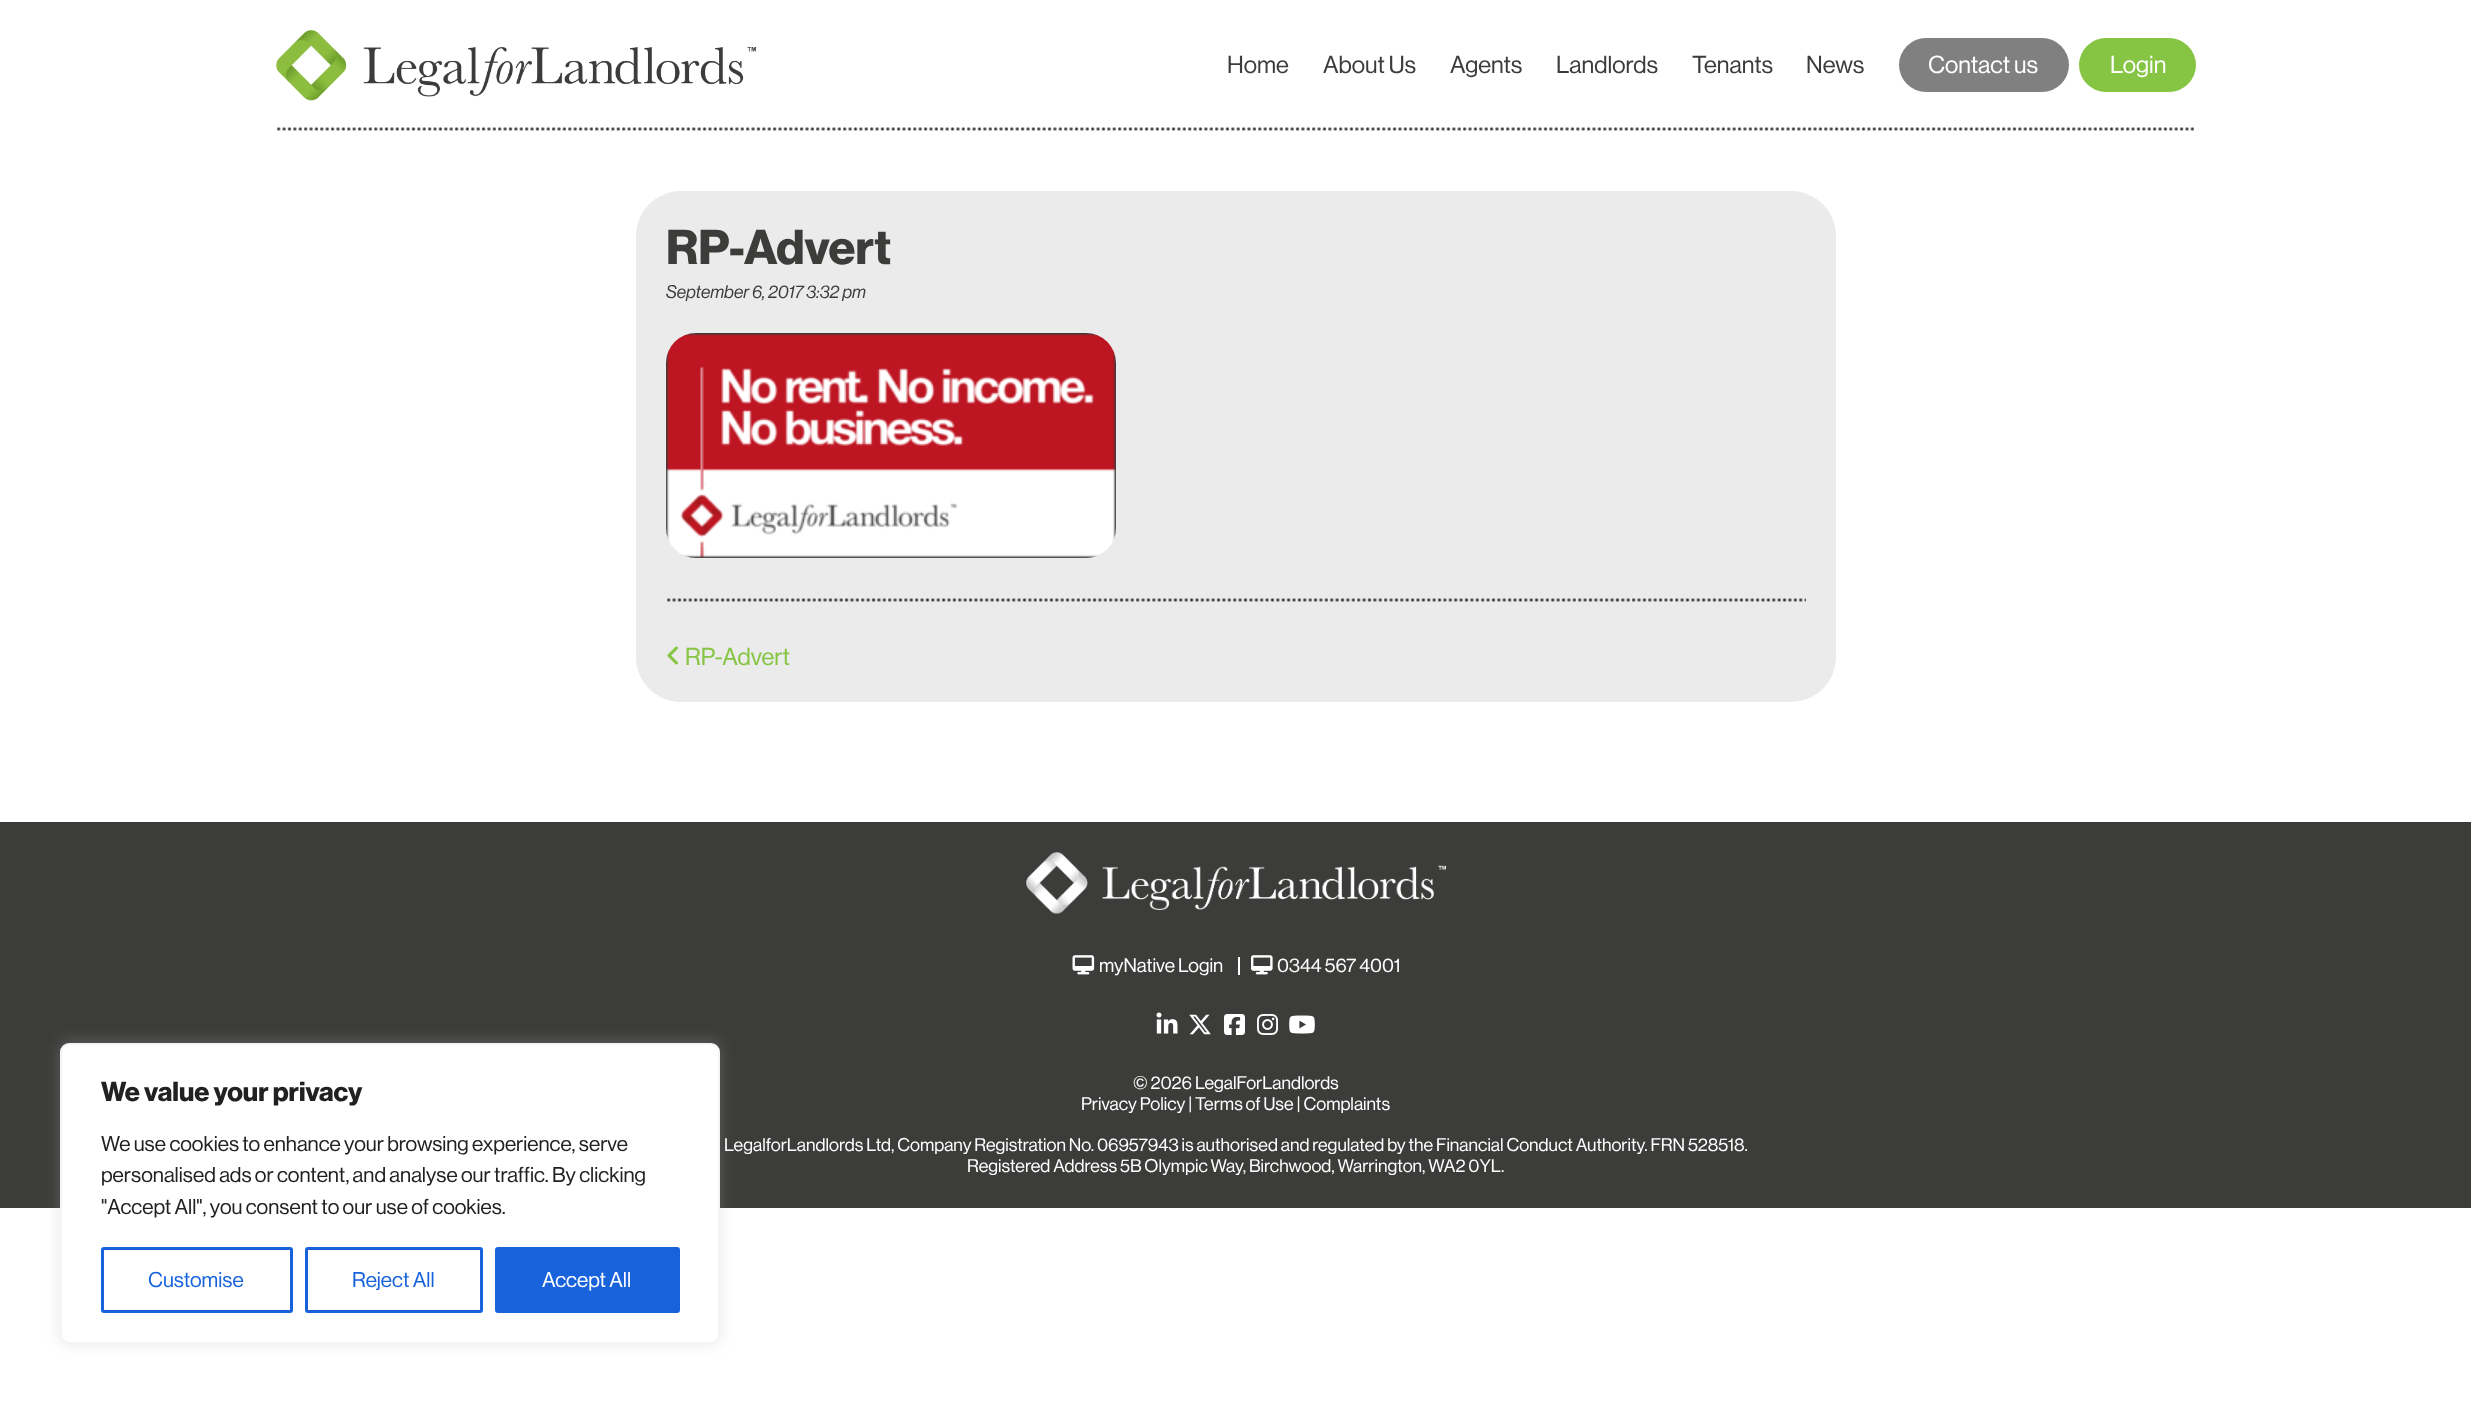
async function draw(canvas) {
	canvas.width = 2471;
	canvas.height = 1403;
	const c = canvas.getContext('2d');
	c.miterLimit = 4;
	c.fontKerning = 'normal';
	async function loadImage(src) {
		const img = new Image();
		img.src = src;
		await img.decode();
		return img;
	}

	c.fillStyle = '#fff';
	c.fillRect(0, 0, 2471, 1403);
	c.drawImage(await loadImage('img1.png'), 276, 30, 480, 71);
	c.font = '500 24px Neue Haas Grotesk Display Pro';
	c.fillStyle = '#3c3c3b';
	for (const [text, x, y] of [
		['Home', 1227, 73],
		['About Us', 1323, 73],
		['Agents', 1450, 73],
		['Landlords', 1556, 73],
		['Tenants', 1692, 73],
		['News', 1806, 73],
	]) {
		c.fillText(text, x, y);
	}
	c.fillStyle = '#818080';
	c.beginPath();
	c.roundRect(1899, 38, 170, 54, 27);
	c.fill();
	c.fillStyle = '#fff';
	c.fillText('Contact us', 1928, 73);
	c.fillStyle = '#86c543';
	c.beginPath();
	c.roundRect(2079, 38, 117, 54, 27);
	c.fill();
	c.fillStyle = '#fff';
	c.fillText('Login', 2110, 73);
	c.drawImage(await loadImage('img2.png'), 277, 127, 1917, 4);
	c.fillStyle = '#ebebeb';
	c.beginPath();
	c.roundRect(636, 191, 1200, 511, 45);
	c.fill();
	c.font = 'bold 48px Neue Haas Grotesk Display Pro';
	c.fillStyle = '#3c3c3b';
	c.fillText('RP-Advert', 666, 264);
	c.font = 'italic 500 18px Neue Haas Grotesk Display Pro';
	c.fillText('September 6, 2017 3:32 pm', 666, 298);
	c.drawImage(await loadImage('img3.png'), 666, 333, 450, 225);
	c.drawImage(await loadImage('img4.png'), 667, 598, 1139, 4);
	c.drawImage(await loadImage('img5.png'), 667, 646, 11, 19);
	c.font = '500 24px Neue Haas Grotesk Display Pro';
	c.fillStyle = '#86c543';
	c.fillText('RP-Advert', 685, 665);
	c.fillStyle = '#3c3c3b';
	c.fillRect(0, 822, 2471, 386);
	c.fillStyle = '#acabab4d';
	c.filter = 'blur(7.5px)';
	c.beginPath();
	c.roundRect(60, 1041, 660, 302, 9);
	c.fill();
	c.filter = 'none';
	c.fillStyle = '#fff';
	c.beginPath();
	c.roundRect(61, 1044, 658, 299, 8);
	c.fill();
	c.strokeStyle = '#f4f4f4';
	c.lineWidth = 2;
	c.stroke();
	c.font = 'bold 27px Neue Haas Grotesk Display Pro';
	c.fillStyle = '#212121';
	c.fillText('We value your privacy', 101, 1101);
	c.font = '500 21px Neue Haas Grotesk Display Pro';
	for (const [text, x, y] of [
		['We use cookies to enhance your browsing experience, serve', 101, 1151],
		['personalised ads or content, and analyse our traffic. By clicking', 101, 1182],
		['"Accept All", you consent to our use of cookies.', 101, 1214],
	]) {
		c.fillText(text, x, y);
	}
	c.beginPath();
	c.roundRect(102.5, 1248.5, 189, 63, 1.5);
	c.strokeStyle = '#1863dc';
	c.lineWidth = 3;
	c.stroke();
	c.fillStyle = '#1863dc';
	c.fillText('Customise', 148, 1287);
	c.beginPath();
	c.roundRect(306.5, 1248.5, 175, 63, 1.5);
	c.stroke();
	c.fillText('Reject All', 352, 1287);
	c.beginPath();
	c.roundRect(496.5, 1248.5, 182, 63, 1.5);
	c.fill();
	c.stroke();
	c.fillStyle = '#fff';
	c.fillText('Accept All', 542, 1287);
	c.drawImage(await loadImage('img6.png'), 1026, 852, 420, 62);
	c.fillRect(1238, 957, 2, 18);
	c.drawImage(await loadImage('img7.png'), 1072, 955, 23, 20);
	c.font = '500 19.25px Neue Haas Grotesk Display Pro';
	c.fillText('myNative Login', 1099, 972);
	c.drawImage(await loadImage('img8.png'), 1251, 955, 22, 20);
	c.fillText('0344 567 4001', 1277, 972);
	c.drawImage(await loadImage('img9.png'), 1156, 1012, 22, 22);
	c.drawImage(await loadImage('img10.png'), 1189, 1014, 22, 21);
	c.drawImage(await loadImage('img11.png'), 1224, 1014, 21, 21);
	c.drawImage(await loadImage('img12.png'), 1257, 1014, 21, 21);
	c.drawImage(await loadImage('img13.png'), 1289, 1015, 26, 19);
	c.font = '500 18px Neue Haas Grotesk Display Pro';
	for (const [text, x, y] of [
		['© 2026 LegalForLandlords', 1133, 1089],
		['Privacy Policy | Terms of Use | Complaints', 1081, 1110],
		['LegalforLandlords Ltd, Company Registration No. 06957943 is authorised and regulated by the Financial Conduct Authority. FRN 528518.', 724, 1151],
		['Registered Address 5B Olympic Way, Birchwood, Warrington, WA2 0YL.', 967, 1172],
	]) {
		c.fillText(text, x, y);
	}
}

draw(document.querySelector('canvas'));
